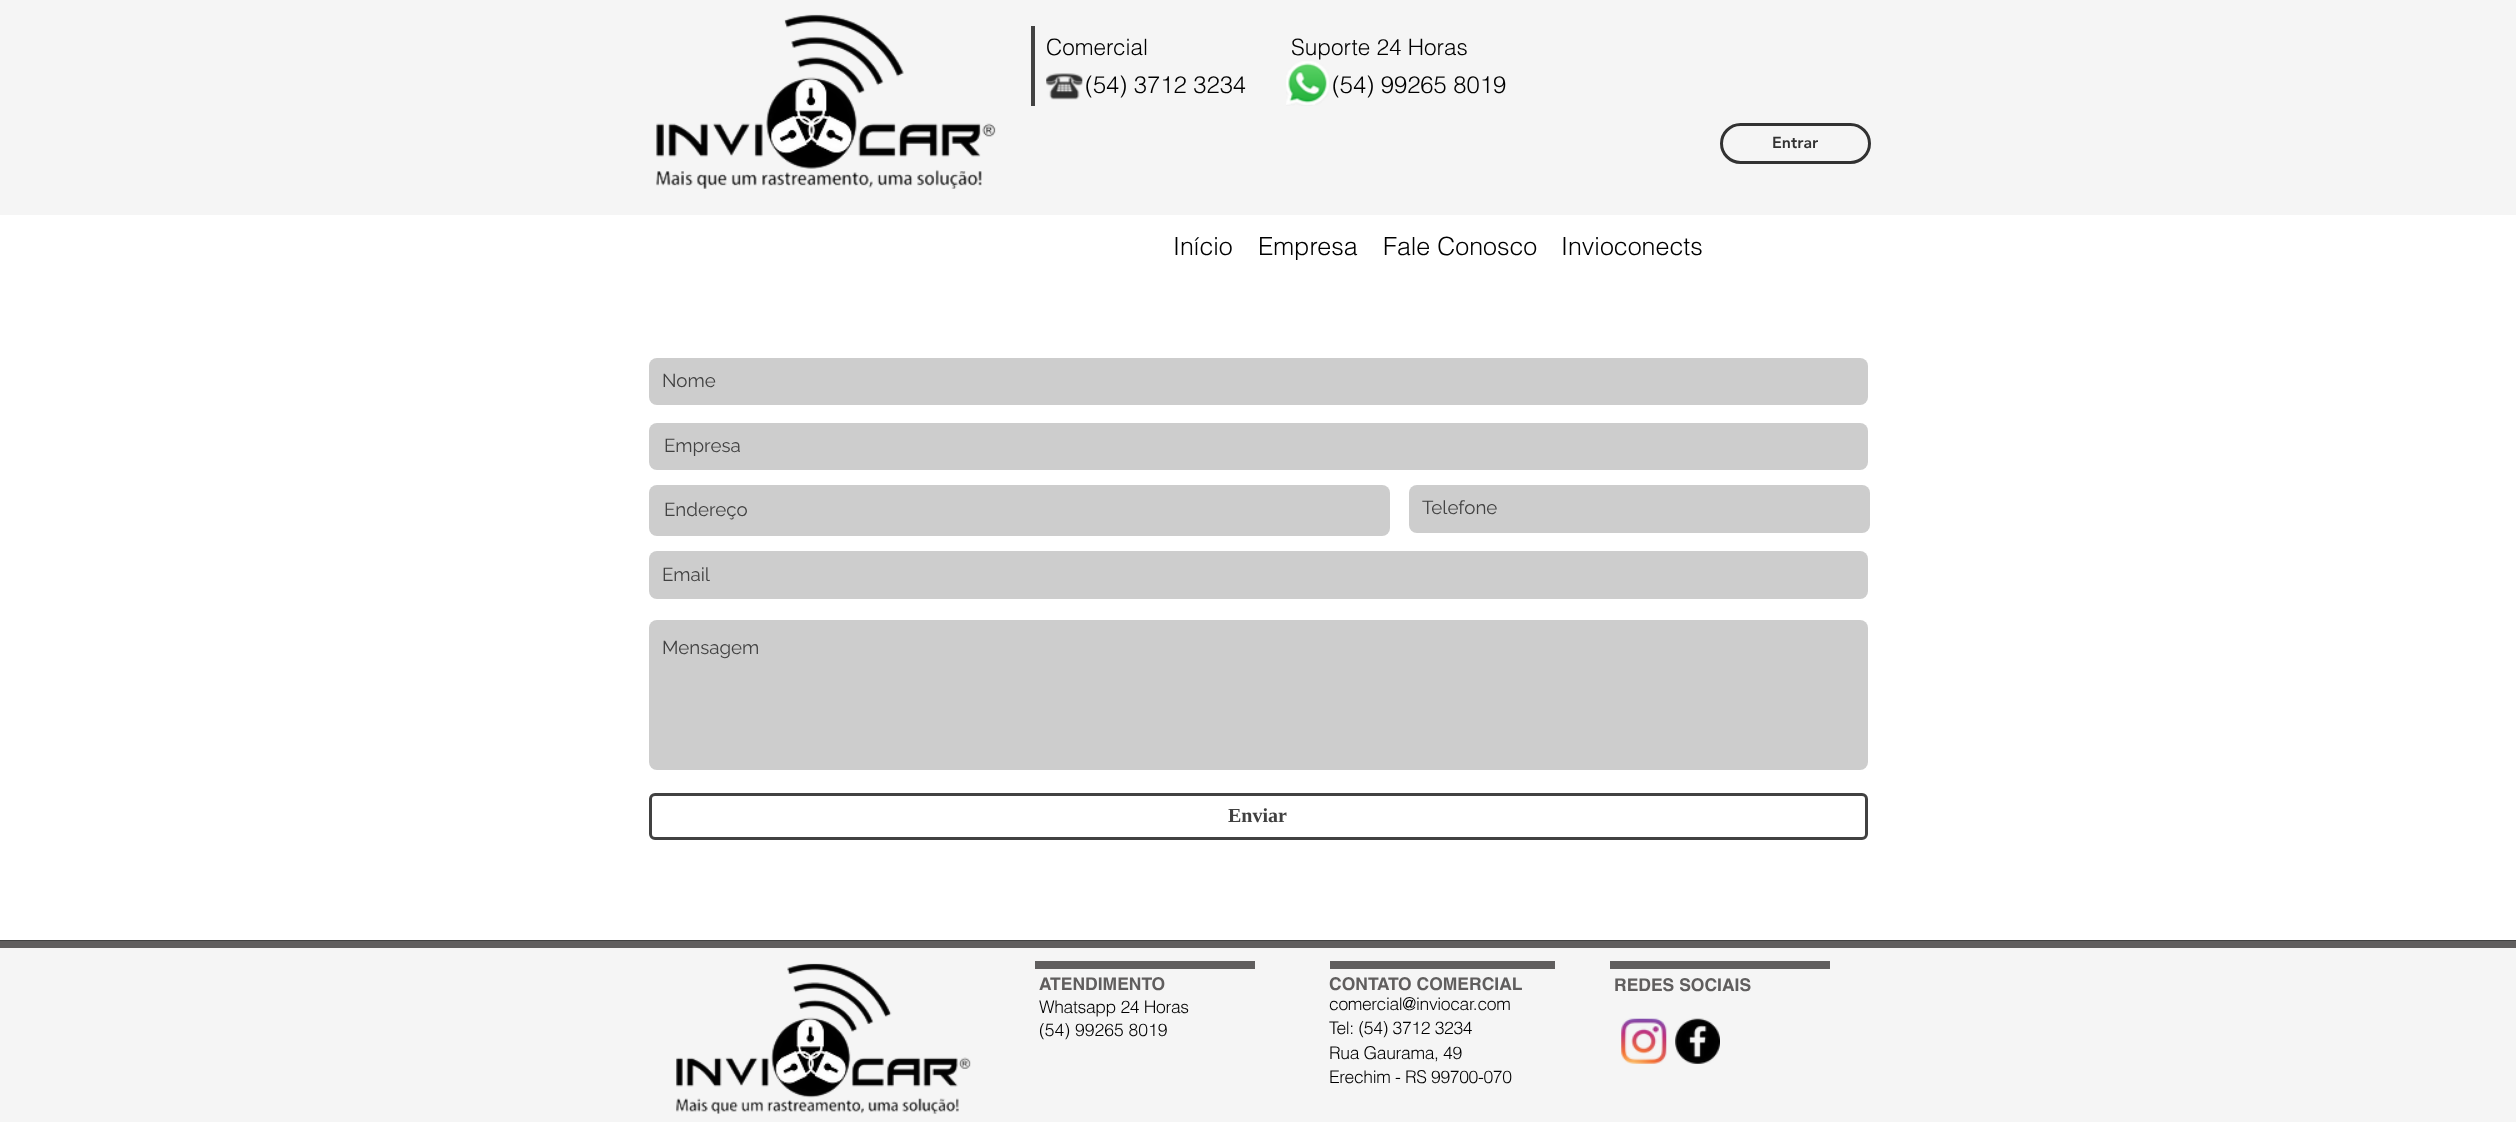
async function draw(canvas) {
	canvas.width = 2516;
	canvas.height = 1122;
	const c = canvas.getContext('2d');
	c.miterLimit = 4;
	c.fontKerning = 'normal';
	async function loadImage(src) {
		const img = new Image();
		img.src = src;
		await img.decode();
		return img;
	}

	c.fillStyle = '#414141';
	c.fillRect(0, 0, 2516, 1122);
	c.fillStyle = '#fffffff2';
	c.fillRect(0, 0, 2516, 215);
	c.drawImage(await loadImage('img1.png'), 656, 14, 340, 175);
	c.fillStyle = '#424242';
	c.fillRect(1031, 26, 4, 80);
	c.font = '300 22.5px helvetica';
	c.fillStyle = '#000';
	c.fillText('Comercial', 1046, 55);
	c.fillText('Suporte 24 Horas', 1291, 55);
	c.drawImage(await loadImage('img2.png'), 1046, 73, 37, 27);
	c.font = '300 23.75px helvetica';
	c.fillText('(54) 3712 3234             (54) 99265 8019', 1085, 93);
	c.drawImage(await loadImage('img3.png'), 1286, 61, 43, 45);
	c.beginPath();
	c.roundRect(1721.5, 124.5, 148, 38, 19);
	c.strokeStyle = '#323232';
	c.lineWidth = 3;
	c.stroke();
	c.font = '900 16px "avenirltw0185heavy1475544"';
	c.fillStyle = '#323232';
	c.fillText('Entrar', 1772, 148);
	c.fillStyle = '#fff';
	c.fillRect(0, 215, 2516, 725);
	c.font = '300 25px helvetica';
	c.fillStyle = '#000';
	for (const [text, x, y] of [
		['Início', 1173, 255],
		['Empresa', 1258, 255],
		['Fale Conosco', 1383, 255],
		['Invioconects', 1561, 255],
	]) {
		c.fillText(text, x, y);
	}
	c.fillStyle = '#cdcdcd';
	c.beginPath();
	c.roundRect(649, 358, 1219, 47, 8);
	c.fill();
	c.font = '18.75px Raleway';
	c.fillStyle = '#414141';
	c.fillText('Nome', 662, 387);
	c.fillStyle = '#cdcdcd';
	c.beginPath();
	c.roundRect(649, 423, 1219, 47, 8);
	c.fill();
	c.fillStyle = '#414141';
	c.fillText('Empresa', 664, 452);
	c.fillStyle = '#cdcdcd';
	c.beginPath();
	c.roundRect(649, 485, 741, 51, 8);
	c.fill();
	c.fillStyle = '#414141';
	c.fillText('Endereço', 664, 516);
	c.fillStyle = '#cdcdcd';
	c.beginPath();
	c.roundRect(1409, 485, 461, 48, 8);
	c.fill();
	c.fillStyle = '#414141';
	c.fillText('Telefone', 1422, 514);
	c.fillStyle = '#cdcdcd';
	c.beginPath();
	c.roundRect(649, 551, 1219, 48, 8);
	c.fill();
	c.fillStyle = '#414141';
	c.fillText('Email', 662, 581);
	c.fillStyle = '#cdcdcd';
	c.beginPath();
	c.roundRect(649, 620, 1219, 150, 8);
	c.fill();
	c.fillStyle = '#414141';
	c.fillText('Mensagem', 662, 654);
	c.beginPath();
	c.roundRect(650.5, 794.5, 1216, 44, 4.5);
	c.strokeStyle = '#414141';
	c.stroke();
	c.font = 'bold 20px Liberation Serif';
	c.fillText('Enviar', 1228, 822);
	c.fillStyle = '#f5f5f5';
	c.fillRect(0, 948, 2516, 174);
	c.fillStyle = '#605e5e';
	c.fillRect(0, 941, 2516, 7);
	c.drawImage(await loadImage('img4.png'), 676, 963, 295, 151);
	for (const [x, y, w, h, color] of [
		[1035, 961, 220, 8, '#605e5e'],
		[1330, 961, 225, 8, '#605e5e'],
		[1610, 961, 220, 8, '#605e5e'],
	]) {
		c.fillStyle = color;
		c.fillRect(x, y, w, h);
	}
	c.font = 'bold 17.5px helvetica';
	for (const [text, x, y] of [
		['ATENDIMENTO', 1039, 990],
		['CONTATO COMERCIAL', 1329, 990],
		['REDES SOCIAIS', 1614, 991],
	]) {
		c.fillText(text, x, y);
	}
	c.letterSpacing = '-0.35px';
	c.font = '300 17.5px helvetica';
	c.fillStyle = '#000';
	for (const [text, x, y] of [
		['Whatsapp 24 Horas', 1039, 1013],
		['comercial@inviocar.com', 1329, 1010],
		['Tel: (54) 3712 3234', 1329, 1034],
		['Rua Gaurama, 49', 1329, 1059],
		['Erechim - RS 99700-070', 1329, 1083],
	]) {
		c.fillText(text, x, y);
	}
	c.letterSpacing = '0px';
	c.fillText('(54) 99265 8019', 1039, 1036);
	c.drawImage(await loadImage('img5.png'), 1621, 1018, 46, 46);
	c.drawImage(await loadImage('img6.png'), 1675, 1018, 45, 46);
}

draw(document.querySelector('canvas'));
